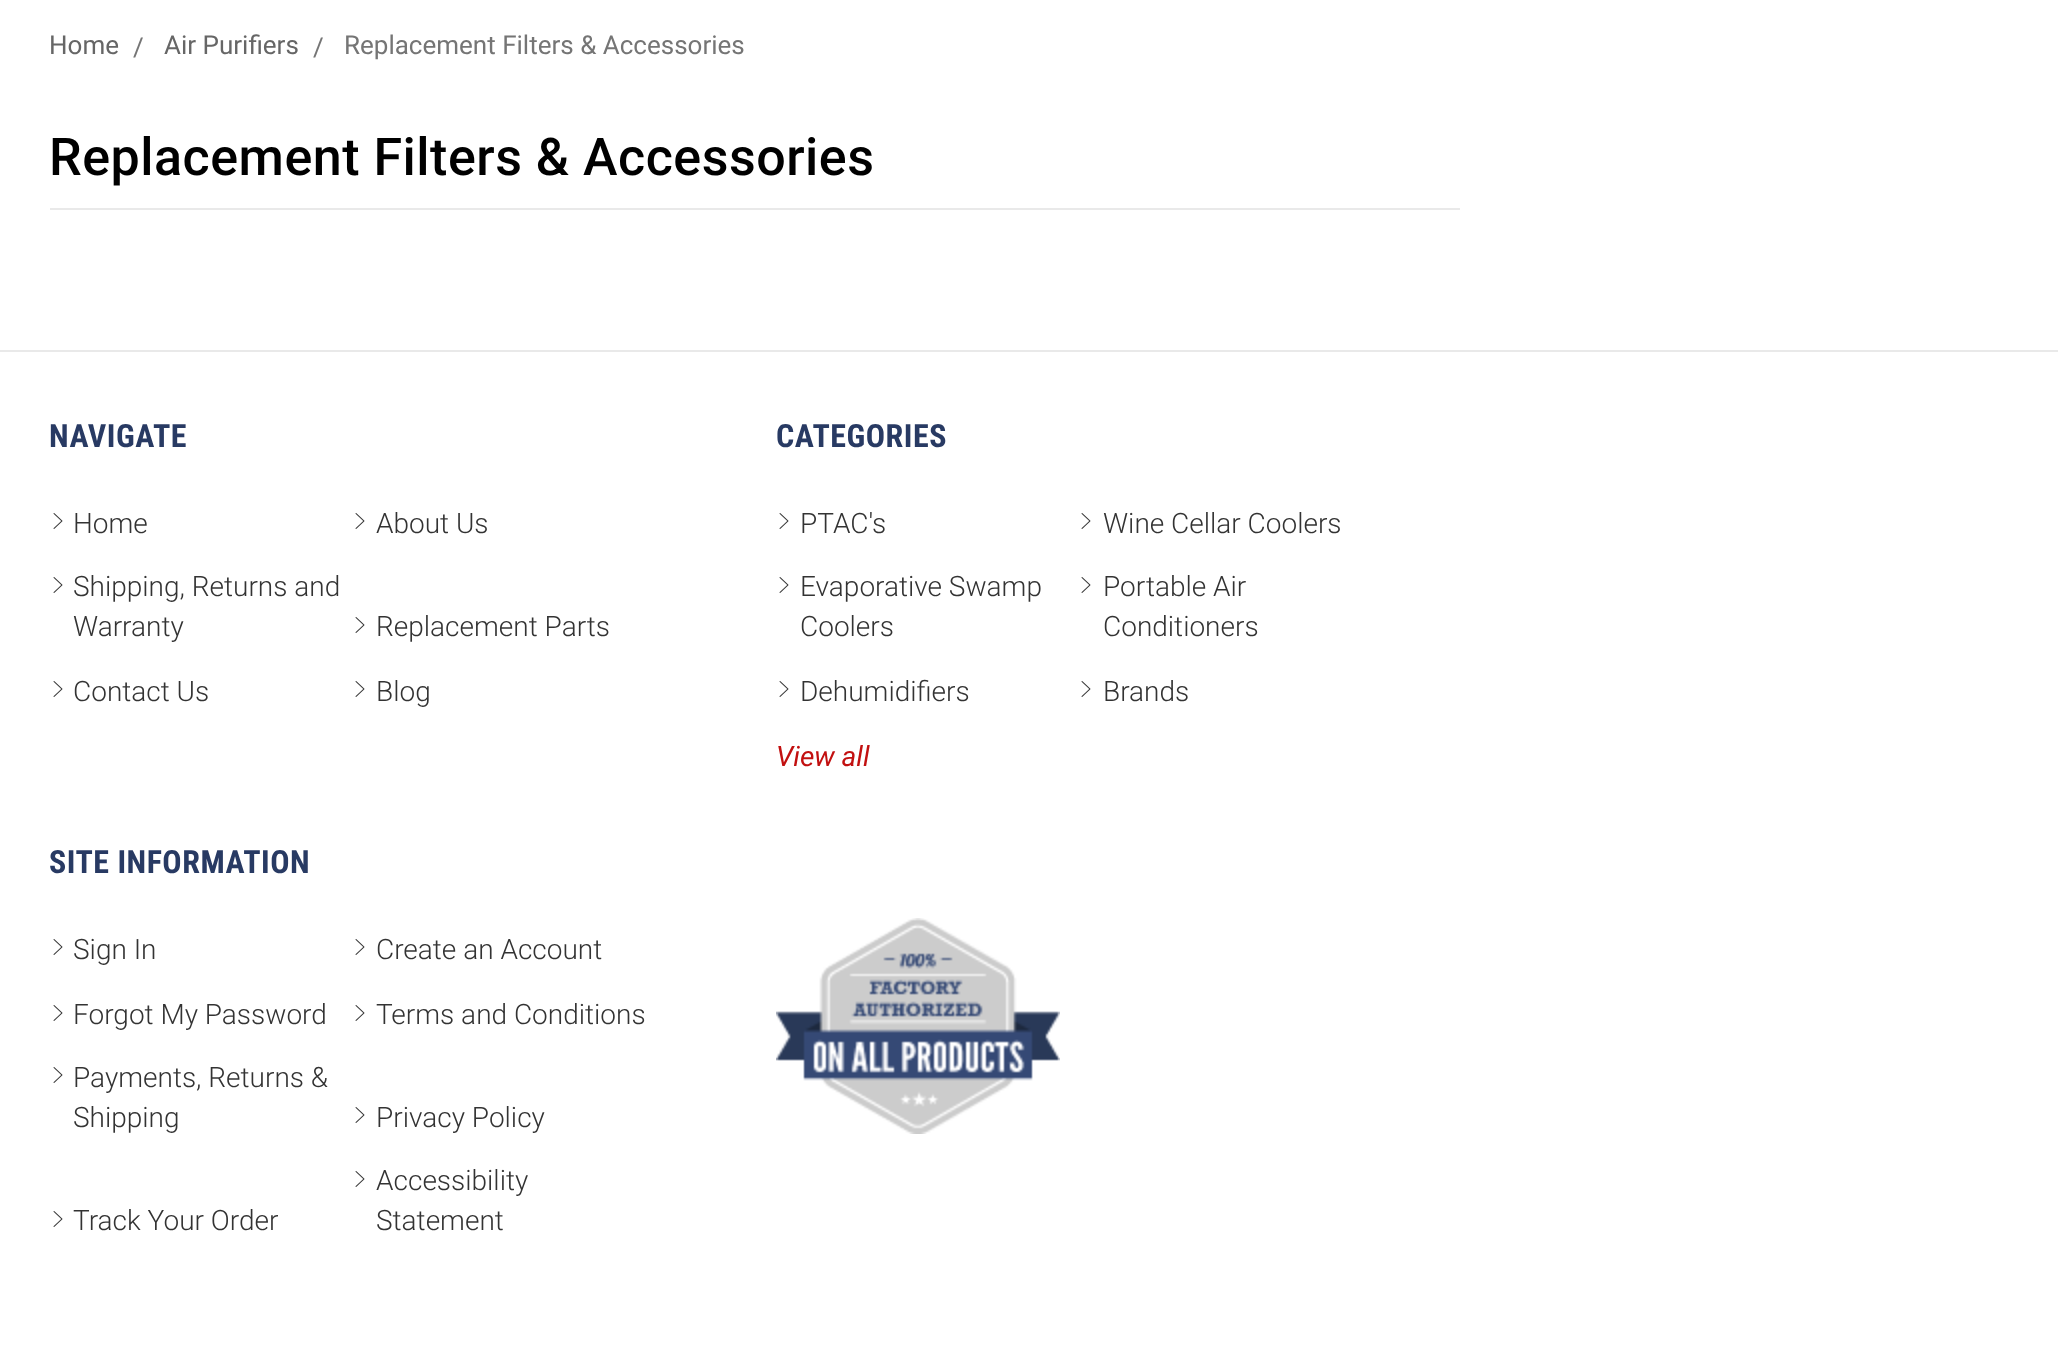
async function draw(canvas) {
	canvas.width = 2058;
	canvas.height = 1352;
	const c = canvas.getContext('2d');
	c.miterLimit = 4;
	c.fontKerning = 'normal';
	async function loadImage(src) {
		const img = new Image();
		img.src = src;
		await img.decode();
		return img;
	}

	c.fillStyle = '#fff';
	c.fillRect(0, 0, 2058, 1352);
	c.font = '26px Roboto';
	c.fillStyle = '#666';
	c.fillText('Home', 49, 54);
	c.fillStyle = '#757575';
	c.fillText('/', 133, 56);
	c.fillStyle = '#666';
	c.fillText('Air Purifiers', 164, 54);
	c.fillStyle = '#757575';
	c.fillText('/', 313, 56);
	c.fillText('Replacement Filters & Accessories', 344, 54);
	c.fillStyle = '#e9e9e9';
	c.fillRect(50, 208, 1410, 2);
	c.letterSpacing = '0.5px';
	c.font = '500 52px Roboto';
	c.fillStyle = '#000';
	c.fillText('Replacement Filters & Accessories', 49, 175);
	c.fillStyle = '#e9e9e9';
	c.fillRect(0, 350, 2058, 2);
	c.font = 'bold 32px Roboto Condensed';
	c.fillStyle = '#283a63';
	c.fillText('NAVIGATE', 49, 447);
	c.drawImage(await loadImage('img1.png'), 53, 513, 10, 16);
	c.letterSpacing = '0px';
	c.font = '300 28px Roboto';
	c.fillStyle = '#333';
	c.fillText('Home', 73, 533);
	c.drawImage(await loadImage('img1.png'), 355, 513, 10, 16);
	c.fillText('About Us', 376, 533);
	c.drawImage(await loadImage('img1.png'), 53, 577, 10, 16);
	c.fillText('Shipping, Returns and', 73, 596);
	c.fillText('Warranty', 73, 636);
	c.drawImage(await loadImage('img1.png'), 355, 617, 10, 16);
	c.fillText('Replacement Parts', 376, 636);
	c.drawImage(await loadImage('img1.png'), 53, 681, 10, 16);
	c.fillText('Contact Us', 73, 701);
	c.drawImage(await loadImage('img1.png'), 355, 681, 10, 16);
	c.fillText('Blog', 376, 701);
	c.letterSpacing = '0.5px';
	c.font = 'bold 32px Roboto Condensed';
	c.fillStyle = '#283a63';
	c.fillText('CATEGORIES', 776, 447);
	c.drawImage(await loadImage('img1.png'), 779, 513, 10, 16);
	c.letterSpacing = '0px';
	c.font = '300 28px Roboto';
	c.fillStyle = '#333';
	c.fillText('PTAC\'s', 800, 533);
	c.drawImage(await loadImage('img1.png'), 1081, 513, 10, 16);
	c.fillText('Wine Cellar Coolers', 1103, 533);
	c.drawImage(await loadImage('img1.png'), 779, 577, 10, 16);
	c.fillText('Evaporative Swamp', 800, 596);
	c.fillText('Coolers', 800, 636);
	c.drawImage(await loadImage('img1.png'), 1081, 577, 10, 16);
	c.fillText('Portable Air', 1103, 596);
	c.fillText('Conditioners', 1103, 636);
	c.drawImage(await loadImage('img1.png'), 779, 681, 10, 16);
	c.fillText('Dehumidifiers', 800, 701);
	c.drawImage(await loadImage('img1.png'), 1081, 681, 10, 16);
	c.fillText('Brands', 1103, 701);
	c.font = 'italic 28px Roboto';
	c.fillStyle = '#c21010';
	c.fillText('View all', 776, 766);
	c.letterSpacing = '0.5px';
	c.font = 'bold 32px Roboto Condensed';
	c.fillStyle = '#283a63';
	c.fillText('SITE INFORMATION', 49, 873);
	c.drawImage(await loadImage('img1.png'), 53, 939, 10, 16);
	c.letterSpacing = '0px';
	c.font = '300 28px Roboto';
	c.fillStyle = '#333';
	c.fillText('Sign In', 73, 959);
	c.drawImage(await loadImage('img1.png'), 355, 939, 10, 16);
	c.fillText('Create an Account', 376, 959);
	c.drawImage(await loadImage('img1.png'), 53, 1005, 10, 16);
	c.fillText('Forgot My Password', 73, 1024);
	c.drawImage(await loadImage('img1.png'), 355, 1005, 10, 16);
	c.fillText('Terms and Conditions', 376, 1024);
	c.drawImage(await loadImage('img1.png'), 53, 1067, 10, 16);
	c.fillText('Payments, Returns &', 73, 1087);
	c.fillText('Shipping', 73, 1127);
	c.drawImage(await loadImage('img1.png'), 355, 1107, 10, 16);
	c.fillText('Privacy Policy', 376, 1127);
	c.drawImage(await loadImage('img1.png'), 53, 1211, 10, 16);
	c.fillText('Track Your Order', 73, 1230);
	c.drawImage(await loadImage('img1.png'), 355, 1171, 10, 16);
	c.fillText('Accessibility', 376, 1190);
	c.fillText('Statement', 376, 1230);
	c.drawImage(await loadImage('img2.png'), 776, 918, 284, 216);
}

draw(document.querySelector('canvas'));
